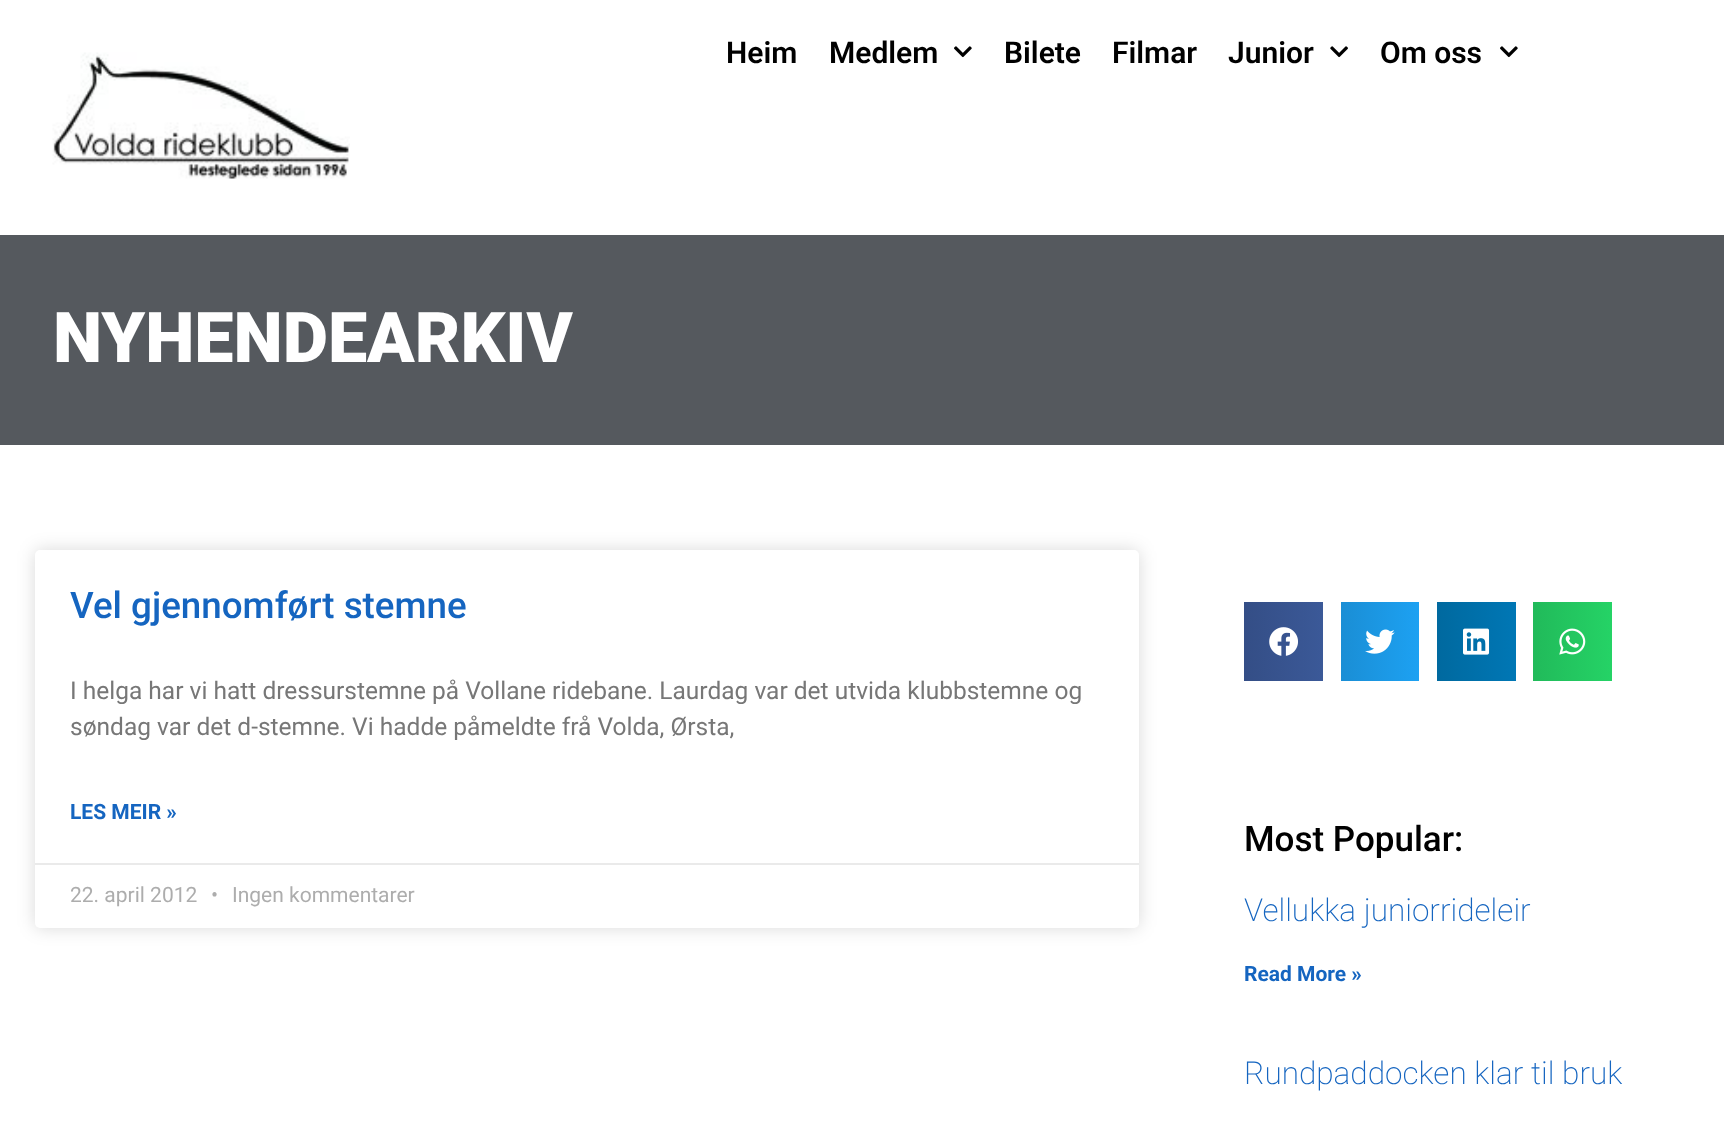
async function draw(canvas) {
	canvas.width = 1724;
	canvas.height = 1134;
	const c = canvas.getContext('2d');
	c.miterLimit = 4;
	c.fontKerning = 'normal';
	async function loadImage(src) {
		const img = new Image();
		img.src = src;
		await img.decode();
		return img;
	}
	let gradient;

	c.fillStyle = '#fff';
	c.fillRect(0, 0, 1724, 1134);
	c.drawImage(await loadImage('img1.png'), 52, 52, 298, 127);
	c.font = '600 30px Roboto';
	c.fillStyle = '#000';
	c.fillText('Heim', 726, 63);
	c.fillText('Medlem', 829, 63);
	c.drawImage(await loadImage('img2.png'), 954, 46, 18, 12);
	for (const [text, x, y] of [
		['Bilete', 1004, 63],
		['Filmar', 1112, 63],
		['Junior', 1228, 63],
	]) {
		c.fillText(text, x, y);
	}
	c.drawImage(await loadImage('img3.png'), 1330, 46, 18, 12);
	c.fillText('Om oss', 1380, 63);
	c.drawImage(await loadImage('img2.png'), 1500, 46, 18, 12);
	c.fillStyle = '#55595e';
	c.fillRect(0, 235, 1724, 210);
	c.font = '900 70px Roboto';
	c.fillStyle = '#fff';
	c.fillText('NYHENDEARKIV', 53, 362);
	c.fillStyle = '#00000026';
	c.filter = 'blur(9px)';
	c.beginPath();
	c.roundRect(35, 550, 1104, 378, 5);
	c.fill();
	c.filter = 'none';
	c.fillStyle = '#fff';
	c.beginPath();
	c.roundRect(35, 550, 1104, 378, 5);
	c.fill();
	c.font = '500 36.75px Roboto';
	c.fillStyle = '#1565c0';
	c.fillText('Vel gjennomført stemne', 70, 618);
	c.font = '24.5px Roboto';
	c.fillStyle = '#777';
	c.fillText('I helga har vi hatt dressurstemne på Vollane ridebane. Laurdag var det utvida klubbstemne og', 70, 699);
	c.fillText('søndag var det d-stemne. Vi hadde påmeldte frå Volda, Ørsta,', 70, 735);
	c.font = 'bold 21px Roboto';
	c.fillStyle = '#1565c0';
	c.fillText('LES MEIR »', 70, 819);
	c.fillStyle = '#eaeaea';
	c.fillRect(35, 863, 1104, 2);
	c.font = '21px Roboto';
	c.fillStyle = '#adadad';
	for (const [text, x, y] of [
		['22. april 2012', 70, 902],
		['•', 211, 902],
		['Ingen kommentarer', 232, 902],
	]) {
		c.fillText(text, x, y);
	}
	gradient = c.createLinearGradient(1244, 641, 1323, 641);
	gradient.addColorStop(0, '#344e86');
	gradient.addColorStop(1, '#3b5998');
	c.fillStyle = gradient;
	c.fillRect(1244, 602, 79, 79);
	c.drawImage(await loadImage('img4.png'), 1269, 627, 29, 29);
	gradient = c.createLinearGradient(1341, 641, 1419, 641);
	gradient.addColorStop(0, '#1a8ed5');
	gradient.addColorStop(1, '#1da1f2');
	c.fillStyle = gradient;
	c.fillRect(1341, 602, 78, 79);
	c.drawImage(await loadImage('img5.png'), 1365, 629, 30, 25);
	gradient = c.createLinearGradient(1437, 641, 1516, 641);
	gradient.addColorStop(0, '#00699f');
	gradient.addColorStop(1, '#0077b5');
	c.fillStyle = gradient;
	c.fillRect(1437, 602, 79, 79);
	c.drawImage(await loadImage('img6.png'), 1463, 628, 27, 27);
	gradient = c.createLinearGradient(1533, 641, 1612, 641);
	gradient.addColorStop(0, '#21ba5a');
	gradient.addColorStop(1, '#25d366');
	c.fillStyle = gradient;
	c.fillRect(1533, 602, 79, 79);
	c.drawImage(await loadImage('img7.png'), 1559, 628, 27, 27);
	c.font = '500 35px Roboto';
	c.fillStyle = '#000';
	c.fillText('Most Popular:', 1244, 851);
	c.font = '200 31.5px Roboto';
	c.fillStyle = '#1565c0';
	c.fillText('Vellukka juniorrideleir', 1244, 921);
	c.font = 'bold 21px Roboto';
	c.fillText('Read More »', 1244, 981);
	c.font = '200 31.5px Roboto';
	c.fillText('Rundpaddocken klar til bruk', 1244, 1084);
}

draw(document.querySelector('canvas'));
